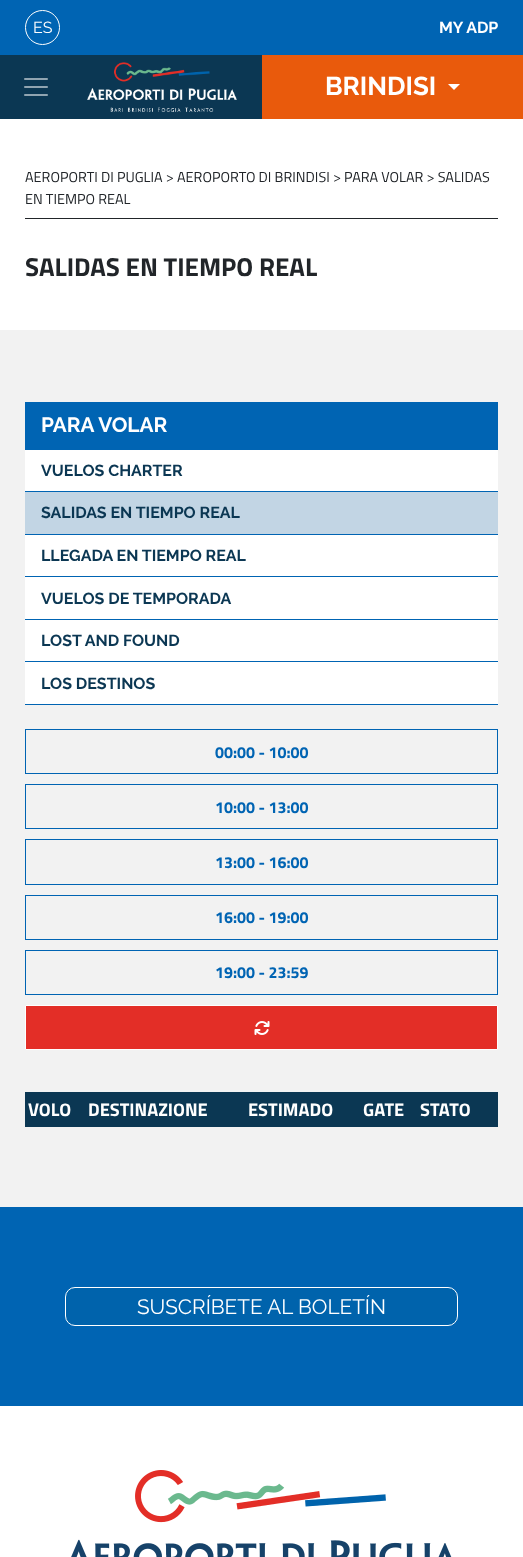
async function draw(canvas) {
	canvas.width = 523;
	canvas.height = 1557;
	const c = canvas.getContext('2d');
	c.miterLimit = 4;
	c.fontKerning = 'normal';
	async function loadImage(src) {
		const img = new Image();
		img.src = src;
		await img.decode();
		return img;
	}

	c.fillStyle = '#fff';
	c.fillRect(0, 0, 523, 1557);
	c.fillStyle = '#0064b3';
	c.fillRect(0, 0, 523, 55);
	c.beginPath();
	c.arc(42.5, 27.5, 17, 0, 2 * Math.PI);
	c.strokeStyle = '#fff';
	c.stroke();
	c.font = '100 16px "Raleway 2"';
	c.fillStyle = '#fff';
	c.fillText('ES', 33, 33);
	c.font = '100 16px Raleway';
	c.fillText('MY ADP', 439, 33);
	c.fillStyle = '#0b3753';
	c.fillRect(0, 55, 262, 64);
	c.drawImage(await loadImage('img1.png'), 24, 78, 24, 18);
	c.drawImage(await loadImage('img2.png'), 87, 62, 150, 50);
	c.fillStyle = '#e95a0c';
	c.fillRect(262, 55, 261, 64);
	c.font = '100 25.9px Raleway';
	c.fillStyle = '#fff';
	c.fillText('BRINDISI', 325, 95);
	c.beginPath();
	c.moveTo(448, 84);
	c.lineTo(460, 84);
	c.lineTo(454, 90);
	c.closePath();
	c.fill();
	c.font = '14.4px Titillium Web';
	c.fillStyle = '#212529';
	c.fillText('AEROPORTI DI PUGLIA > AEROPORTO DI BRINDISI > PARA VOLAR > SALIDAS', 25, 182);
	c.fillText('EN TIEMPO REAL', 25, 204);
	c.fillRect(25, 218, 473, 1);
	c.font = 'bold 25.9px Titillium Web';
	c.fillText('SALIDAS EN TIEMPO REAL', 25, 276);
	c.fillStyle = '#f2f2f2';
	c.fillRect(0, 330, 523, 877);
	c.fillStyle = '#0064b3';
	c.fillRect(25, 402, 473, 48);
	c.font = '100 20.75px Raleway';
	c.fillStyle = '#fff';
	c.fillText('PARA VOLAR', 41, 432);
	c.fillRect(25, 450, 473, 41);
	c.fillStyle = '#0064b3';
	c.fillRect(25, 491, 473, 1);
	c.font = '100 16px Raleway';
	c.fillStyle = '#0b3753';
	c.fillText('VUELOS CHARTER', 41, 476);
	c.fillStyle = '#c2d5e4';
	c.fillRect(25, 492, 473, 42);
	c.fillStyle = '#0064b3';
	c.fillRect(25, 534, 473, 1);
	c.fillStyle = '#0b3753';
	c.fillText('SALIDAS EN TIEMPO REAL', 41, 518);
	c.fillStyle = '#fff';
	c.fillRect(25, 535, 473, 41);
	c.fillStyle = '#0064b3';
	c.fillRect(25, 576, 473, 1);
	c.fillStyle = '#0b3753';
	c.fillText('LLEGADA EN TIEMPO REAL', 41, 561);
	c.fillStyle = '#fff';
	c.fillRect(25, 577, 473, 42);
	c.fillStyle = '#0064b3';
	c.fillRect(25, 619, 473, 1);
	c.fillStyle = '#0b3753';
	c.fillText('VUELOS DE TEMPORADA', 41, 604);
	c.fillStyle = '#fff';
	c.fillRect(25, 620, 473, 41);
	c.fillStyle = '#0064b3';
	c.fillRect(25, 661, 473, 1);
	c.fillStyle = '#0b3753';
	c.fillText('LOST AND FOUND', 41, 646);
	c.fillStyle = '#fff';
	c.fillRect(25, 662, 473, 42);
	c.fillStyle = '#0064b3';
	c.fillRect(25, 704, 473, 1);
	c.fillStyle = '#0b3753';
	c.fillText('LOS DESTINOS', 41, 689);
	c.strokeStyle = '#0064b3';
	c.strokeRect(25.5, 729.5, 472, 44);
	c.font = 'bold 16px Titillium Web';
	c.fillStyle = '#0064b3';
	c.fillText('00:00 - 10:00', 215, 758);
	c.strokeRect(25.5, 784.5, 472, 44);
	c.fillText('10:00 - 13:00', 215, 813);
	c.strokeRect(25.5, 839.5, 472, 45);
	c.fillText('13:00 - 16:00', 215, 868);
	c.strokeRect(25.5, 895.5, 472, 44);
	c.fillText('16:00 - 19:00', 215, 923);
	c.strokeRect(25.5, 950.5, 472, 44);
	c.fillText('19:00 - 23:59', 215, 978);
	c.fillStyle = '#e32e27';
	c.beginPath();
	c.rect(25.5, 1005.5, 472, 44);
	c.fill();
	c.strokeStyle = '#fff';
	c.stroke();
	c.drawImage(await loadImage('img3.png'), 254, 1021, 16, 14);
	for (const [x, y, w, h, color] of [
		[25, 1092, 473, 1, '#0b3753'],
		[497, 1092, 1, 35, '#0b3753'],
		[25, 1126, 473, 1, '#0b3753'],
		[25, 1092, 1, 35, '#0b3753'],
		[26, 1093, 471, 33, '#0b3753'],
	]) {
		c.fillStyle = color;
		c.fillRect(x, y, w, h);
	}
	c.font = 'bold 18.25px Titillium Web';
	c.fillStyle = '#fff';
	for (const [text, x, y] of [
		['VOLO', 28, 1116],
		['DESTINAZIONE', 88, 1116],
		['ESTIMADO', 248, 1116],
		['GATE', 363, 1116],
		['STATO', 420, 1116],
	]) {
		c.fillText(text, x, y);
	}
	c.fillStyle = '#0064b3';
	c.fillRect(0, 1207, 523, 199);
	c.fillStyle = '#0063ac';
	c.beginPath();
	c.roundRect(65.5, 1287.5, 392, 38, 9.5);
	c.fill();
	c.stroke();
	c.font = '100 20.75px "Raleway 2"';
	c.fillStyle = '#fff';
	c.fillText('SUSCRÍBETE AL BOLETÍN', 137, 1314);
	c.drawImage(await loadImage('img4.png'), 71, 1470, 381, 87);
}

draw(document.querySelector('canvas'));
